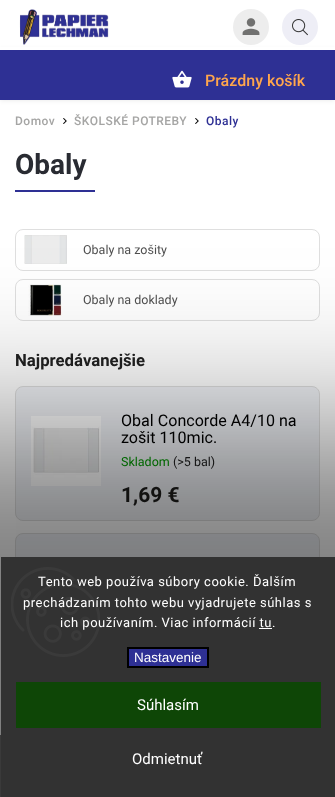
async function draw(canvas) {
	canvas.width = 335;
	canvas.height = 797;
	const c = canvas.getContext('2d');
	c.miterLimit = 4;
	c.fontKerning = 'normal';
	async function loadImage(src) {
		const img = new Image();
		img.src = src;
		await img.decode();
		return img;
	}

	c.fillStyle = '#fff';
	c.fillRect(0, 0, 335, 797);
	c.fillStyle = '#757575';
	c.fillRect(0, 735, 1, 62);
	c.fillStyle = '#0000001a';
	c.filter = 'blur(2.5px)';
	c.beginPath();
	c.rect(0, 50, 335, 50);
	c.fill();
	c.filter = 'none';
	c.fillStyle = '#fff';
	c.fillRect(0, 47, 335, 3);
	c.drawImage(await loadImage('img1.png'), 19, 9, 90, 36);
	c.fillStyle = '#ededed';
	c.beginPath();
	c.arc(251, 27, 18, 0, 2 * Math.PI);
	c.fill();
	c.drawImage(await loadImage('img2.png'), 242, 18, 18, 17);
	c.fillStyle = '#eeeef6';
	c.beginPath();
	c.arc(300, 27, 18, 0, 2 * Math.PI);
	c.fill();
	c.drawImage(await loadImage('img3.png'), 292, 19, 16, 17);
	c.fillStyle = '#2e3094';
	c.fillRect(0, 50, 335, 50);
	c.drawImage(await loadImage('img4.png'), 172, 70, 20, 18);
	c.font = '500 16px Roboto';
	c.fillStyle = '#ffa64c';
	c.fillText('Prázdny košík', 205, 86);
	c.letterSpacing = '0.5px';
	c.font = '500 12px Roboto';
	c.fillStyle = '#a5a5a4';
	c.fillText('Domov', 15, 125);
	c.drawImage(await loadImage('img5.png'), 63, 118, 4, 6);
	c.fillText('ŠKOLSKÉ POTREBY', 74, 125);
	c.drawImage(await loadImage('img5.png'), 195, 118, 4, 6);
	c.fillStyle = '#2e3094';
	c.fillText('Obaly', 206, 125);
	c.letterSpacing = '0px';
	c.font = 'bold 28px Roboto';
	c.fillStyle = '#292b32';
	c.fillText('Obaly', 15, 174);
	c.fillStyle = '#2e3094';
	c.fillRect(15, 190, 80, 2);
	c.beginPath();
	c.roundRect(15.5, 229.5, 304, 41, 7.5);
	c.strokeStyle = '#dfdfdf';
	c.stroke();
	c.drawImage(await loadImage('img6.png'), 24, 235, 43, 29);
	c.font = '12.5px Roboto';
	c.fillStyle = '#505050';
	c.fillText('Obaly na zošity', 83, 254);
	c.beginPath();
	c.roundRect(15.5, 279.5, 304, 41, 7.5);
	c.stroke();
	c.drawImage(await loadImage('img7.png'), 28, 284, 34, 32);
	c.fillText('Obaly na doklady', 83, 304);
	c.font = 'bold 16.75px Roboto';
	c.fillStyle = '#222';
	c.fillText('Najpredávanejšie', 15, 366);
	c.fillStyle = '#f1f3f7';
	c.beginPath();
	c.roundRect(15.5, 386.5, 304, 134, 7.5);
	c.fill();
	c.stroke();
	c.drawImage(await loadImage('img8.png'), 31, 416, 70, 70);
	c.font = '16.1px Roboto';
	c.fillStyle = '#000';
	c.fillText('Obal Concorde A4/10 na', 121, 426);
	c.fillText('zošit 110mic.', 121, 443);
	c.font = '12.5px Roboto';
	c.fillStyle = '#009901';
	c.fillText('Skladom', 121, 466);
	c.fillStyle = '#222';
	c.fillText('(>5 bal)', 173, 466);
	c.font = 'bold 21px Roboto';
	c.fillStyle = '#1e1e1c';
	c.fillText('1,69 €', 121, 502);
	c.fillStyle = '#f1f3f7';
	c.beginPath();
	c.roundRect(15.5, 533.5, 304, 134, 7.5);
	c.fill();
	c.stroke();
	c.fillStyle = '#00000080';
	c.filter = 'blur(80px)';
	c.beginPath();
	c.rect(-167, 430, 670, 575);
	c.fill();
	c.filter = 'none';
	c.fillStyle = '#323232';
	c.fillRect(1, 557, 334, 240);
	c.drawImage(await loadImage('img9.png'), 11, 567, 89, 90);
	c.letterSpacing = '0.5px';
	c.font = '13px Roboto';
	c.fillStyle = '#fff';
	for (const [text, x, y] of [
		['Tento web používa súbory cookie. Ďalším', 38, 586],
		['prechádzaním tohto webu vyjadrujete súhlas s', 23, 607],
		['ich používaním. Viac informácií tu.', 60, 627],
	]) {
		c.fillText(text, x, y);
	}
	c.fillRect(259, 628, 13, 1);
	c.fillStyle = '#2e3094';
	c.beginPath();
	c.rect(128, 648, 80, 19);
	c.fill();
	c.strokeStyle = '#000';
	c.lineWidth = 2;
	c.stroke();
	c.letterSpacing = '0px';
	c.font = '13.5px Liberation Sans';
	c.fillStyle = '#fff';
	c.fillText('Nastavenie', 134, 662);
	c.fillStyle = '#0e4606';
	c.fillRect(16, 682, 305, 46);
	c.font = '15px Roboto';
	c.fillStyle = '#fff';
	c.fillText('Súhlasím', 137, 710);
	c.fillText('Odmietnuť', 132, 764);
}

draw(document.querySelector('canvas'));
